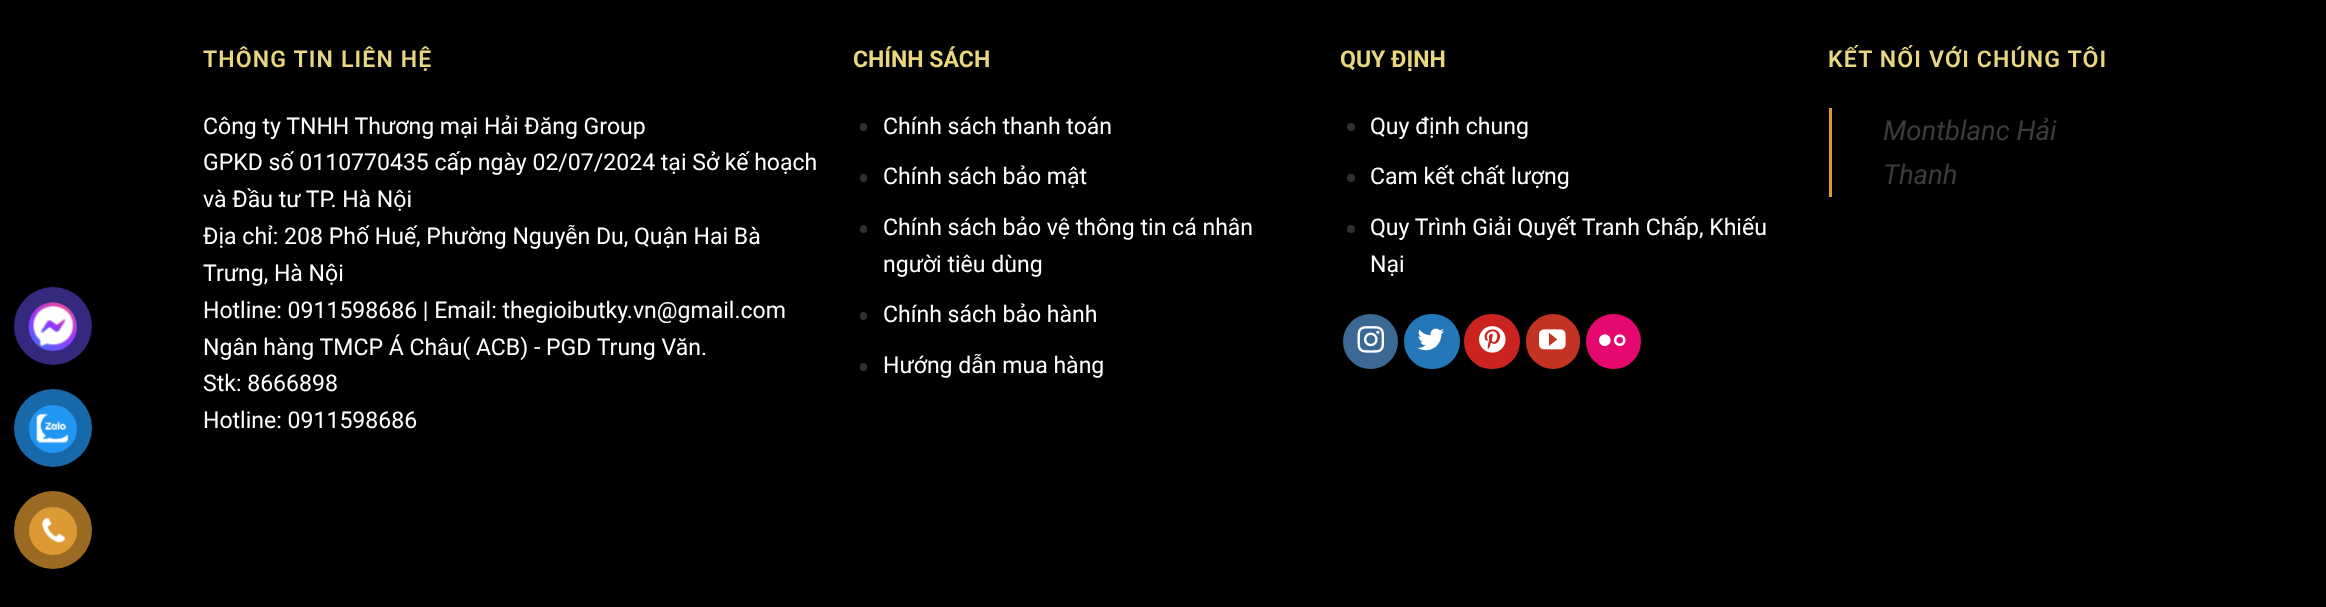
async function draw(canvas) {
	canvas.width = 2326;
	canvas.height = 607;
	const c = canvas.getContext('2d');
	c.miterLimit = 4;
	c.fontKerning = 'normal';
	async function loadImage(src) {
		const img = new Image();
		img.src = src;
		await img.decode();
		return img;
	}

	c.fillStyle = '#000';
	c.fillRect(0, 0, 2326, 607);
	c.fillStyle = '#35287f';
	c.beginPath();
	c.arc(53, 326, 39, 0, 2 * Math.PI);
	c.fill();
	c.fillStyle = '#6a4ffe';
	c.beginPath();
	c.arc(53, 327, 24, 0, 2 * Math.PI);
	c.fill();
	c.drawImage(await loadImage('img1.png'), 28, 302, 49, 48);
	c.fillStyle = '#1769aa';
	c.beginPath();
	c.arc(53, 428, 39, 0, 2 * Math.PI);
	c.fill();
	c.fillStyle = '#2196f3';
	c.beginPath();
	c.arc(53, 429, 24, 0, 2 * Math.PI);
	c.fill();
	c.drawImage(await loadImage('img2.png'), 36, 413, 33, 30);
	c.fillStyle = '#9b6b24';
	c.beginPath();
	c.arc(53, 530, 39, 0, 2 * Math.PI);
	c.fill();
	c.fillStyle = '#d93';
	c.beginPath();
	c.arc(53, 531, 24, 0, 2 * Math.PI);
	c.fill();
	c.drawImage(await loadImage('img3.png'), 41, 517, 24, 26);
	c.letterSpacing = '1.15px';
	c.font = '600 23.05px Roboto';
	c.fillStyle = '#e9d680';
	c.fillText('THÔNG TIN LIÊN HỆ', 203, 67);
	c.letterSpacing = '0px';
	c.font = '23.05px Roboto';
	c.fillStyle = '#fff';
	for (const [text, x, y] of [
		['Công ty TNHH Thương mại Hải Đăng Group', 203, 134],
		['GPKD số 0110770435 cấp ngày 02/07/2024 tại Sở kế hoạch', 203, 170],
		['và Đầu tư TP. Hà Nội', 203, 207],
		['Địa chỉ: 208 Phố Huế, Phường Nguyễn Du, Quận Hai Bà', 203, 244],
		['Trưng, Hà Nội', 203, 281],
		['Hotline: 0911598686 | Email: thegioibutky.vn@gmail.com', 203, 318],
		['Ngân hàng TMCP Á Châu( ACB) - PGD Trung Văn.', 203, 355],
		['Stk: 8666898', 203, 391],
		['Hotline: 0911598686', 203, 428],
	]) {
		c.fillText(text, x, y);
	}
	c.font = 'bold 23.05px Roboto';
	c.fillStyle = '#e9d680';
	c.fillText('CHÍNH SÁCH', 853, 67);
	c.fillStyle = '#303030';
	c.beginPath();
	c.roundRect(860, 123, 7, 8, 3.5);
	c.fill();
	c.font = '23.05px Roboto';
	c.fillStyle = '#fff';
	c.fillText('Chính sách thanh toán', 883, 134);
	c.fillStyle = '#303030';
	c.beginPath();
	c.roundRect(860, 174, 7, 8, 3.5);
	c.fill();
	c.fillStyle = '#fff';
	c.fillText('Chính sách bảo mật', 883, 184);
	c.fillStyle = '#303030';
	c.beginPath();
	c.roundRect(860, 225, 7, 8, 3.5);
	c.fill();
	c.fillStyle = '#fff';
	c.fillText('Chính sách bảo vệ thông tin cá nhân', 883, 235);
	c.fillText('người tiêu dùng', 883, 272);
	c.fillStyle = '#303030';
	c.beginPath();
	c.roundRect(860, 312, 7, 8, 3.5);
	c.fill();
	c.fillStyle = '#fff';
	c.fillText('Chính sách bảo hành', 883, 322);
	c.fillStyle = '#303030';
	c.beginPath();
	c.roundRect(860, 363, 7, 8, 3.5);
	c.fill();
	c.fillStyle = '#fff';
	c.fillText('Hướng dẫn mua hàng', 883, 373);
	c.font = 'bold 23.05px Roboto';
	c.fillStyle = '#e9d680';
	c.fillText('QUY ĐỊNH', 1340, 67);
	c.fillStyle = '#303030';
	c.beginPath();
	c.arc(1351, 127, 4, 0, 2 * Math.PI);
	c.fill();
	c.font = '23.05px Roboto';
	c.fillStyle = '#fff';
	c.fillText('Quy định chung', 1370, 134);
	c.fillStyle = '#303030';
	c.beginPath();
	c.arc(1351, 178, 4, 0, 2 * Math.PI);
	c.fill();
	c.fillStyle = '#fff';
	c.fillText('Cam kết chất lượng', 1370, 184);
	c.fillStyle = '#303030';
	c.beginPath();
	c.arc(1351, 229, 4, 0, 2 * Math.PI);
	c.fill();
	c.fillStyle = '#fff';
	c.fillText('Quy Trình Giải Quyết Tranh Chấp, Khiếu', 1370, 235);
	c.fillText('Nại', 1370, 272);
	c.fillStyle = '#3b6994';
	c.beginPath();
	c.arc(1370.5, 341.5, 26.5, 0, 2 * Math.PI);
	c.fill();
	c.strokeStyle = '#3b6994';
	c.lineWidth = 2;
	c.stroke();
	c.drawImage(await loadImage('img4.png'), 1357, 326, 28, 27);
	c.fillStyle = '#2478ba';
	c.beginPath();
	c.roundRect(1405, 315, 54, 53, 26.5);
	c.fill();
	c.strokeStyle = '#2478ba';
	c.stroke();
	c.drawImage(await loadImage('img5.png'), 1417, 328, 27, 23);
	c.fillStyle = '#cb2320';
	c.beginPath();
	c.roundRect(1465, 315, 54, 53, 26.5);
	c.fill();
	c.strokeStyle = '#cb2320';
	c.stroke();
	c.drawImage(await loadImage('img6.png'), 1479, 326, 27, 27);
	c.fillStyle = '#c33223';
	c.beginPath();
	c.roundRect(1527, 315, 52, 53, 26);
	c.fill();
	c.strokeStyle = '#c33223';
	c.stroke();
	c.drawImage(await loadImage('img7.png'), 1539, 329, 27, 21);
	c.fillStyle = '#e5086f';
	c.beginPath();
	c.arc(1613.5, 341.5, 26.5, 0, 2 * Math.PI);
	c.fill();
	c.strokeStyle = '#e5086f';
	c.stroke();
	c.drawImage(await loadImage('img8.png'), 1599, 334, 27, 12);
	c.letterSpacing = '1.15px';
	c.font = '600 23.05px Roboto';
	c.fillStyle = '#e9d680';
	c.fillText('KẾT NỐI VỚI CHÚNG TÔI', 1828, 67);
	c.fillStyle = '#d93';
	c.fillRect(1829, 108, 3, 89);
	c.letterSpacing = '0px';
	c.font = 'italic 27.5px Roboto';
	c.fillStyle = '#3a3c3f';
	c.fillText('Montblanc Hải', 1883, 140);
	c.fillText('Thanh', 1883, 184);
}

draw(document.querySelector('canvas'));
